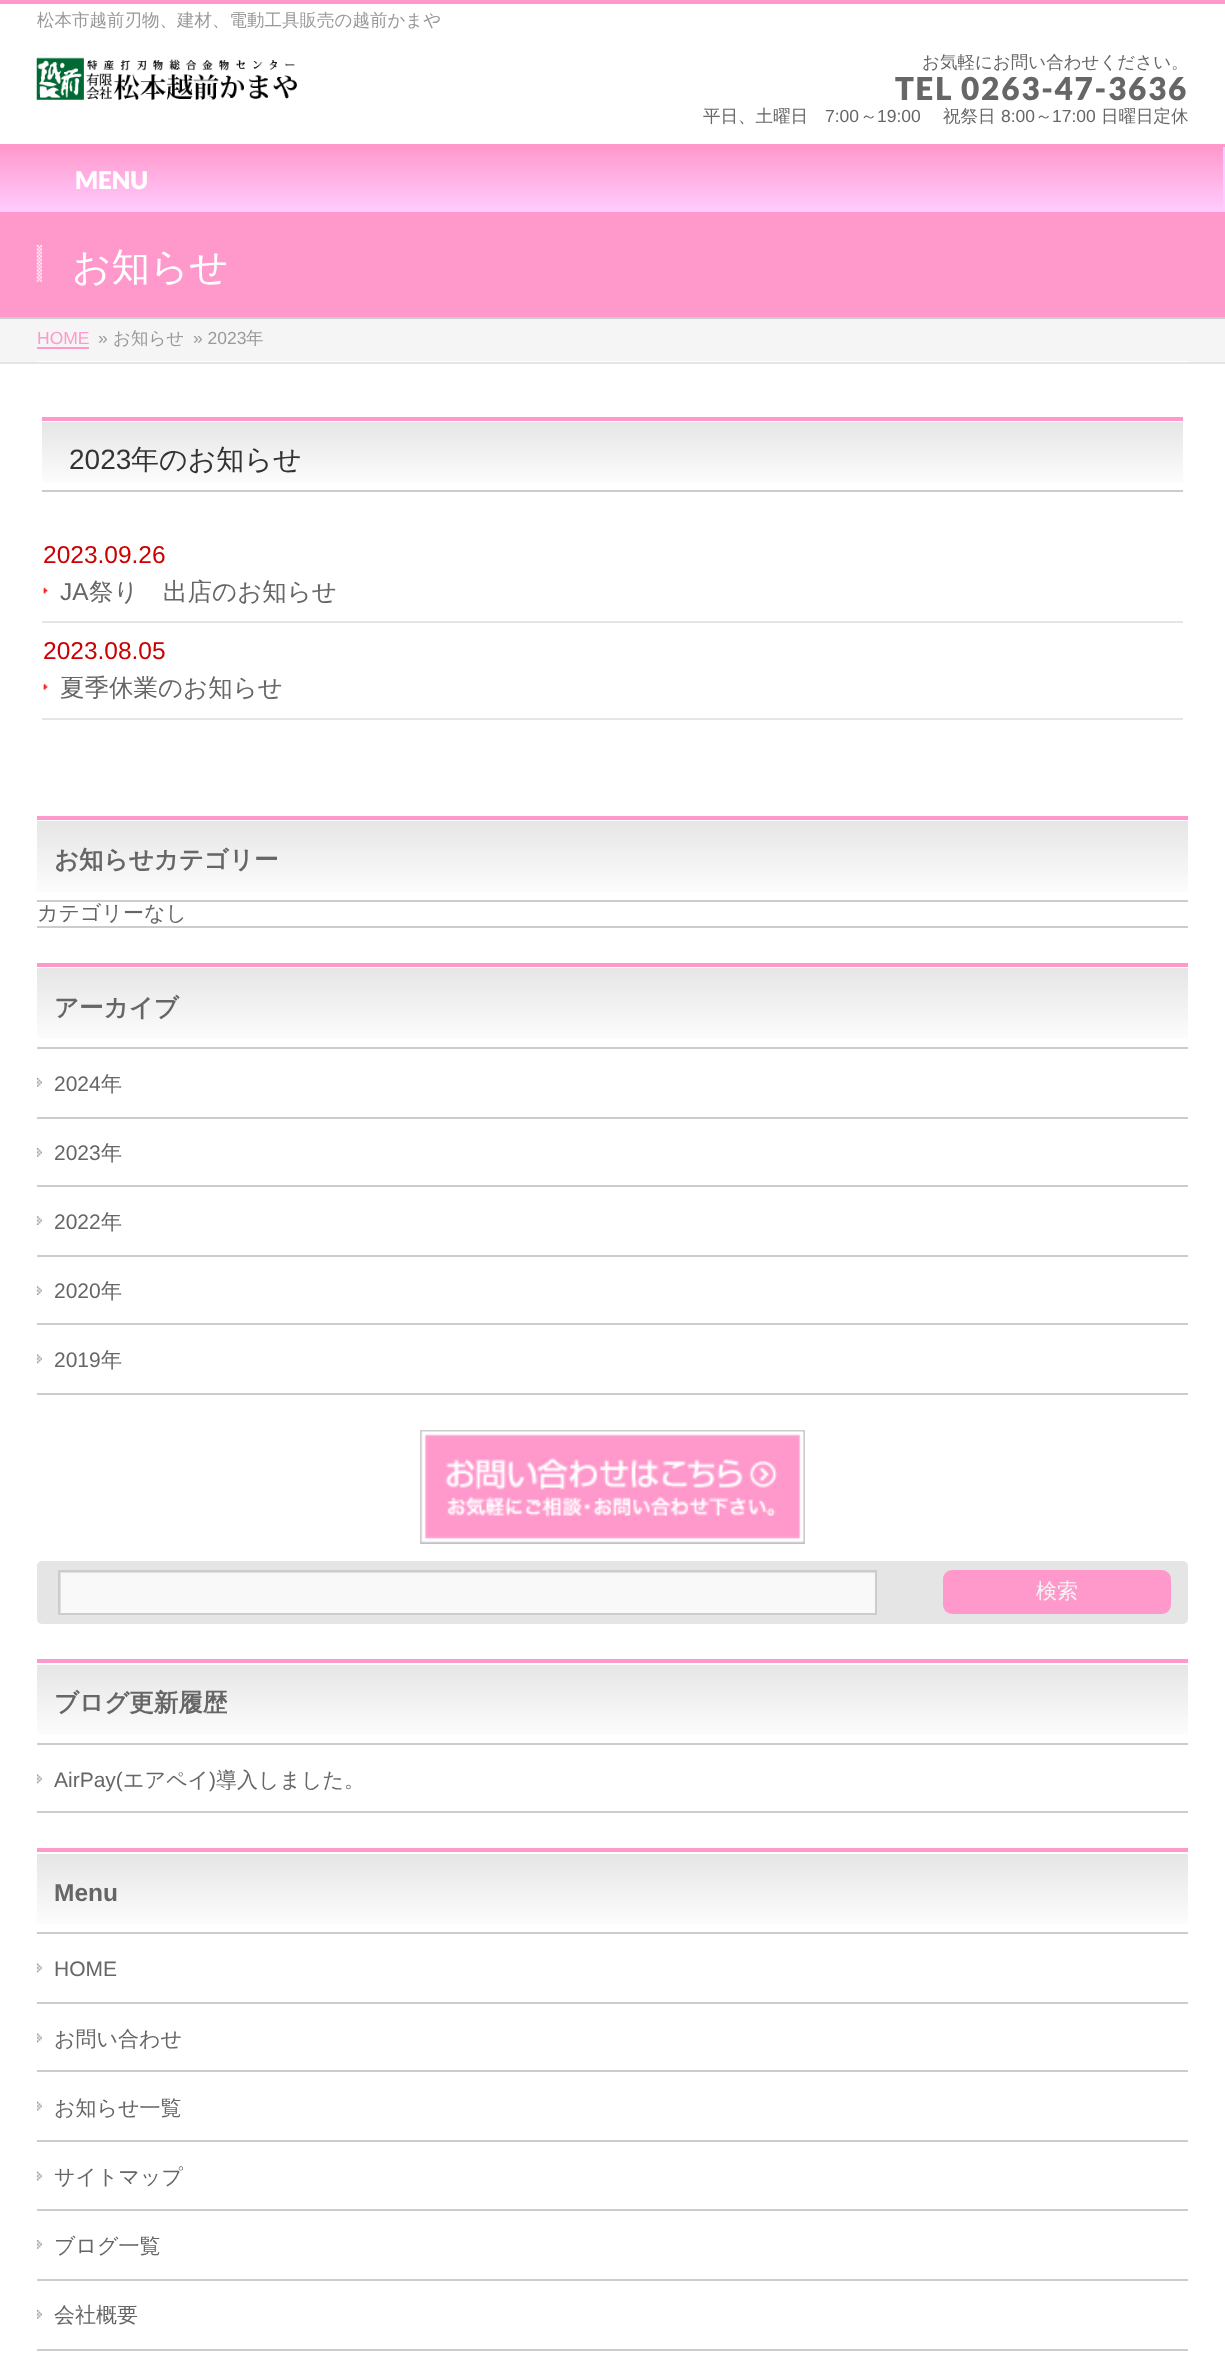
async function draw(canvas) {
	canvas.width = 1225;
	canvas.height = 2356;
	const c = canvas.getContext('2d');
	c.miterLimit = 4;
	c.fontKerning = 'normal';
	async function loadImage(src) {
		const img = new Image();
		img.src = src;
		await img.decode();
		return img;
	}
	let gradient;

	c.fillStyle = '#f9c';
	c.fillRect(0, 0, 1225, 2356);
	c.fillStyle = '#fff';
	c.fillRect(0, 4, 1225, 140);
	c.font = '500 17.5px WenQuanYi Zen Hei';
	c.fillStyle = '#999';
	c.fillText('松本市越前刃物、建材、電動工具販売の越前かまや', 37, 26);
	c.drawImage(await loadImage('img1.png'), 36, 57, 261, 43);
	c.fillStyle = '#666';
	c.fillText('お気軽にお問い合わせください。', 922, 68);
	c.letterSpacing = '1.75px';
	c.font = '900 31.5px Lato';
	c.fillText('TEL 0263-47-3636', 895, 100);
	c.letterSpacing = '0px';
	c.font = '500 17.5px WenQuanYi Zen Hei';
	c.fillText('平日、土曜日', 703, 122);
	c.font = '17.5px Liberation Sans';
	c.fillText('7:00', 825, 122);
	c.font = '500 17.5px WenQuanYi Zen Hei';
	c.fillText('～', 860, 122);
	c.font = '17.5px Liberation Sans';
	c.fillText('19:00', 877, 122);
	c.font = '500 17.5px WenQuanYi Zen Hei';
	c.fillText('祝祭日', 943, 122);
	c.font = '17.5px Liberation Sans';
	c.fillText('8:00', 1001, 122);
	c.font = '500 17.5px WenQuanYi Zen Hei';
	c.fillText('～', 1035, 122);
	c.font = '17.5px Liberation Sans';
	c.fillText('17:00', 1052, 122);
	c.font = '500 17.5px WenQuanYi Zen Hei';
	c.fillText('日曜日定休', 1101, 122);
	gradient = c.createLinearGradient(612, 147, 612, 212);
	gradient.addColorStop(0, '#f9c');
	gradient.addColorStop(1, '#fcf');
	c.fillStyle = gradient;
	c.fillRect(0, 150, 1223, 62);
	c.fillStyle = '#fcf';
	c.fillRect(1223, 147, 2, 65);
	c.font = '900 24.5px Lato';
	c.fillStyle = '#fff';
	c.fillText('MENU', 75, 189);
	c.fillStyle = '#ccc';
	c.fillRect(0, 317, 1225, 2);
	c.drawImage(await loadImage('img2.png'), 36, 245, 6, 37);
	c.font = '500 38.5px WenQuanYi Zen Hei';
	c.fillStyle = '#fff';
	c.fillText('お知らせ', 72, 280);
	for (const [x, y, w, h, color] of [
		[0, 319, 1225, 43, '#f5f5f5'],
		[0, 362, 1225, 2, '#e5e5e5'],
		[37, 361, 1151, 1, '#fff'],
	]) {
		c.fillStyle = color;
		c.fillRect(x, y, w, h);
	}
	c.font = '17.5px Liberation Sans';
	c.fillStyle = '#f9c';
	c.fillText('HOME', 37, 344);
	c.fillRect(37, 347, 52, 2);
	c.fillStyle = '#999';
	c.fillText('»', 98, 344);
	c.font = '500 17.5px WenQuanYi Zen Hei';
	c.fillText('お知らせ', 113, 344);
	c.font = '17.5px Liberation Sans';
	c.fillText('» 2023', 193, 344);
	c.font = '500 17.5px WenQuanYi Zen Hei';
	c.fillText('年', 246, 344);
	c.fillStyle = '#fff';
	c.fillRect(0, 364, 1225, 1992);
	gradient = c.createLinearGradient(42, 420, 42, 490);
	gradient.addColorStop(0, '#e5e5e5');
	gradient.addColorStop(1, '#fff');
	c.fillStyle = gradient;
	c.fillRect(42, 422, 1141, 61);
	c.fillStyle = '#f9c';
	c.fillRect(42, 417, 1141, 4);
	c.fillStyle = '#ccc';
	c.fillRect(42, 490, 1141, 2);
	c.font = '28px Liberation Sans';
	c.fillStyle = '#333';
	c.fillText('2023', 69, 469);
	c.font = '500 28px WenQuanYi Zen Hei';
	c.fillText('年のお知らせ', 131, 469);
	c.fillStyle = '#e5e5e5';
	c.fillRect(42, 621, 1141, 2);
	c.font = '24.5px Liberation Sans';
	c.fillStyle = '#c00';
	c.fillText('2023.09.26', 43, 563);
	c.drawImage(await loadImage('img3.png'), 43, 587, 5, 7);
	c.fillStyle = '#666';
	c.fillText('JA', 60, 600);
	c.font = '500 24.5px WenQuanYi Zen Hei';
	c.fillText('祭り　出店のお知らせ', 89, 600);
	c.fillStyle = '#e5e5e5';
	c.fillRect(42, 718, 1141, 2);
	c.font = '24.5px Liberation Sans';
	c.fillStyle = '#c00';
	c.fillText('2023.08.05', 43, 659);
	c.drawImage(await loadImage('img4.png'), 43, 683, 5, 7);
	c.font = '500 24.5px WenQuanYi Zen Hei';
	c.fillStyle = '#666';
	c.fillText('夏季休業のお知らせ', 60, 696);
	gradient = c.createLinearGradient(37, 819, 37, 900);
	gradient.addColorStop(0, '#e5e5e5');
	gradient.addColorStop(1, '#fff');
	c.fillStyle = gradient;
	c.fillRect(37, 821, 1151, 71);
	c.fillStyle = '#f9c';
	c.fillRect(37, 816, 1151, 4);
	c.fillStyle = '#ccc';
	c.fillRect(37, 900, 1151, 2);
	c.font = 'bold 24.5px WenQuanYi Zen Hei';
	c.fillStyle = '#666';
	c.fillText('お知らせカテゴリー', 54, 868);
	c.fillStyle = '#ccc';
	c.fillRect(37, 926, 1151, 2);
	c.font = '500 21px WenQuanYi Zen Hei';
	c.fillStyle = '#666';
	c.fillText('カテゴリーなし', 37, 920);
	gradient = c.createLinearGradient(37, 966, 37, 1047);
	gradient.addColorStop(0, '#e5e5e5');
	gradient.addColorStop(1, '#fff');
	c.fillStyle = gradient;
	c.fillRect(37, 968, 1151, 71);
	c.fillStyle = '#f9c';
	c.fillRect(37, 963, 1151, 4);
	c.fillStyle = '#ccc';
	c.fillRect(37, 1047, 1151, 2);
	c.font = 'bold 24.5px WenQuanYi Zen Hei';
	c.fillStyle = '#666';
	c.fillText('アーカイブ', 54, 1016);
	c.fillStyle = '#ccc';
	c.fillRect(37, 1117, 1151, 2);
	c.drawImage(await loadImage('img5.png'), 36, 1078, 6, 9);
	c.font = '21px Liberation Sans';
	c.fillStyle = '#666';
	c.fillText('2024', 54, 1091);
	c.font = '500 21px WenQuanYi Zen Hei';
	c.fillText('年', 101, 1091);
	c.fillStyle = '#ccc';
	c.fillRect(37, 1185, 1151, 2);
	c.drawImage(await loadImage('img5.png'), 36, 1148, 6, 9);
	c.font = '21px Liberation Sans';
	c.fillStyle = '#666';
	c.fillText('2023', 54, 1160);
	c.font = '500 21px WenQuanYi Zen Hei';
	c.fillText('年', 101, 1160);
	c.fillStyle = '#ccc';
	c.fillRect(37, 1255, 1151, 2);
	c.drawImage(await loadImage('img6.png'), 36, 1216, 6, 9);
	c.font = '21px Liberation Sans';
	c.fillStyle = '#666';
	c.fillText('2022', 54, 1229);
	c.font = '500 21px WenQuanYi Zen Hei';
	c.fillText('年', 101, 1229);
	c.fillStyle = '#ccc';
	c.fillRect(37, 1323, 1151, 2);
	c.drawImage(await loadImage('img6.png'), 36, 1286, 6, 9);
	c.font = '21px Liberation Sans';
	c.fillStyle = '#666';
	c.fillText('2020', 54, 1298);
	c.font = '500 21px WenQuanYi Zen Hei';
	c.fillText('年', 101, 1298);
	c.fillStyle = '#ccc';
	c.fillRect(37, 1393, 1151, 2);
	c.drawImage(await loadImage('img7.png'), 36, 1354, 6, 10);
	c.font = '21px Liberation Sans';
	c.fillStyle = '#666';
	c.fillText('2019', 54, 1367);
	c.font = '500 21px WenQuanYi Zen Hei';
	c.fillText('年', 101, 1367);
	c.fillStyle = '#f9c';
	c.fillRect(420, 1434, 385, 110);
	c.drawImage(await loadImage('img8.png'), 420, 1430, 385, 114);
	c.fillStyle = '#e5e5e5';
	c.beginPath();
	c.roundRect(37, 1561, 1151, 63, 5);
	c.fill();
	c.fillStyle = '#f9f9f9';
	c.fillRect(61, 1573, 814, 40);
	c.save();
	c.beginPath();
	c.rect(60, 1572, 815, 42);
	c.clip();
	c.fillStyle = '#e0e0e0';
	c.beginPath();
	c.moveTo(42, 1561);
	c.lineTo(1048, 1561);
	c.lineTo(1048, 1624);
	c.lineTo(42, 1624);
	c.bezierCurveTo(39, 1624, 37, 1622, 37, 1619);
	c.lineTo(37, 1566);
	c.bezierCurveTo(37, 1563, 39, 1561, 42, 1561);
	c.closePath();
	c.moveTo(61, 1573);
	c.lineTo(61, 1615);
	c.lineTo(877, 1615);
	c.lineTo(877, 1573);
	c.closePath();
	c.fill('evenodd');
	c.restore();
	c.strokeStyle = '#ccc';
	c.lineWidth = 2;
	c.strokeRect(59, 1571, 817, 43);
	c.fillStyle = '#f9c';
	c.beginPath();
	c.roundRect(943, 1570, 228, 44, 9);
	c.fill();
	c.fillStyle = '#f5f5f5';
	c.fillText('検索', 1036, 1598);
	gradient = c.createLinearGradient(37, 1663, 37, 1743);
	gradient.addColorStop(0, '#e5e5e5');
	gradient.addColorStop(1, '#fff');
	c.fillStyle = gradient;
	c.fillRect(37, 1665, 1151, 70);
	c.fillStyle = '#f9c';
	c.fillRect(37, 1659, 1151, 4);
	c.fillStyle = '#ccc';
	c.fillRect(37, 1743, 1151, 2);
	c.font = 'bold 24.5px WenQuanYi Zen Hei';
	c.fillStyle = '#666';
	c.fillText('ブログ更新履歴', 54, 1711);
	c.fillStyle = '#ccc';
	c.fillRect(37, 1811, 1151, 2);
	c.drawImage(await loadImage('img7.png'), 36, 1774, 6, 10);
	c.font = '21px Liberation Sans';
	c.fillStyle = '#666';
	c.fillText('AirPay(', 54, 1787);
	c.font = '500 21px WenQuanYi Zen Hei';
	c.fillText('エアペイ', 123, 1787);
	c.font = '21px Liberation Sans';
	c.fillText(')', 209, 1787);
	c.font = '500 21px WenQuanYi Zen Hei';
	c.fillText('導入しました。', 216, 1787);
	gradient = c.createLinearGradient(37, 1852, 37, 1932);
	gradient.addColorStop(0, '#e5e5e5');
	gradient.addColorStop(1, '#fff');
	c.fillStyle = gradient;
	c.fillRect(37, 1854, 1151, 70);
	c.fillStyle = '#f9c';
	c.fillRect(37, 1848, 1151, 4);
	c.fillStyle = '#ccc';
	c.fillRect(37, 1932, 1151, 2);
	c.font = 'bold 24.5px Liberation Sans';
	c.fillStyle = '#666';
	c.fillText('Menu', 54, 1901);
	c.fillStyle = '#ccc';
	c.fillRect(37, 2002, 1151, 2);
	c.drawImage(await loadImage('img7.png'), 36, 1963, 6, 10);
	c.font = '21px Liberation Sans';
	c.fillStyle = '#666';
	c.fillText('HOME', 54, 1976);
	c.fillStyle = '#ccc';
	c.fillRect(37, 2070, 1151, 2);
	c.drawImage(await loadImage('img7.png'), 36, 2033, 6, 10);
	c.font = '500 21px WenQuanYi Zen Hei';
	c.fillStyle = '#666';
	c.fillText('お問い合わせ', 54, 2046);
	c.fillStyle = '#ccc';
	c.fillRect(37, 2140, 1151, 2);
	c.drawImage(await loadImage('img9.png'), 36, 2101, 6, 10);
	c.fillStyle = '#666';
	c.fillText('お知らせ一覧', 54, 2115);
	c.fillStyle = '#ccc';
	c.fillRect(37, 2209, 1151, 2);
	c.drawImage(await loadImage('img9.png'), 36, 2171, 6, 10);
	c.fillStyle = '#666';
	c.fillText('サイトマップ', 54, 2184);
	c.fillStyle = '#ccc';
	c.fillRect(37, 2279, 1151, 2);
	c.drawImage(await loadImage('img5.png'), 36, 2240, 6, 9);
	c.fillStyle = '#666';
	c.fillText('ブログ一覧', 54, 2253);
	c.fillStyle = '#ccc';
	c.fillRect(37, 2349, 1151, 2);
	c.drawImage(await loadImage('img5.png'), 36, 2310, 6, 9);
	c.fillStyle = '#666';
	c.fillText('会社概要', 54, 2322);
}

draw(document.querySelector('canvas'));
